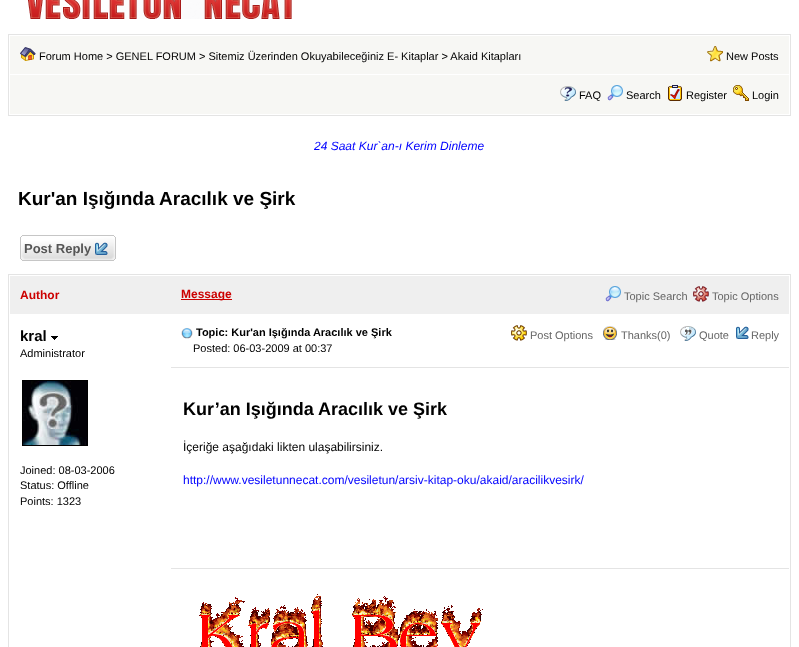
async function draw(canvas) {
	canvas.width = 799;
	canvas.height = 647;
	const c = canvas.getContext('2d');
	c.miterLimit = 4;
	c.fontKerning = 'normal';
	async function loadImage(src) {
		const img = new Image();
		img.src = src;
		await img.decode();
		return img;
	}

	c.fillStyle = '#fff';
	c.fillRect(0, 0, 799, 647);
	c.drawImage(await loadImage('img1.png'), 28, 0, 264, 19);
	c.strokeStyle = '#e4e4e4';
	c.strokeRect(8.5, 34.5, 782, 81);
	c.fillStyle = '#f7f7f4';
	c.fillRect(10, 36, 779, 38);
	c.drawImage(await loadImage('img2.png'), 20, 47, 16, 14);
	c.font = '11px Liberation Sans';
	c.fillStyle = '#000';
	c.fillText('Forum Home > GENEL FORUM > Sitemiz Üzerinden Okuyabileceğiniz E- Kitaplar > Akaid Kitapları', 39, 60);
	c.drawImage(await loadImage('img3.png'), 707, 46, 16, 16);
	c.fillText('New Posts', 726, 60);
	c.fillStyle = '#f7f7f4';
	c.fillRect(10, 75, 779, 39);
	c.drawImage(await loadImage('img4.png'), 560, 86, 16, 15);
	c.fillStyle = '#000';
	c.fillText('FAQ', 579, 99);
	c.drawImage(await loadImage('img5.png'), 607, 85, 16, 16);
	c.fillText('Search', 626, 99);
	c.drawImage(await loadImage('img6.png'), 668, 85, 14, 16);
	c.fillText('Register', 686, 99);
	c.drawImage(await loadImage('img7.png'), 733, 85, 16, 16);
	c.fillText('Login', 752, 99);
	c.font = 'italic 12px Liberation Sans';
	c.fillStyle = '#00f';
	c.fillText('24 Saat Kur`an-ı Kerim Dinleme', 314, 150);
	c.font = 'bold 19px Liberation Sans';
	c.fillStyle = '#000';
	c.fillText('Kur\'an Işığında Aracılık ve Şirk', 18, 205);
	c.drawImage(await loadImage('img8.png'), 20, 235, 96, 26);
	c.font = 'bold 13px Liberation Sans';
	c.fillStyle = '#555';
	c.fillText('Post Reply', 24, 253);
	c.drawImage(await loadImage('img9.png'), 95, 242, 13, 13);
	c.strokeRect(8.5, 274.5, 782, 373);
	c.fillStyle = '#efefef';
	c.fillRect(10, 276, 779, 38);
	c.font = 'bold 12px Liberation Sans';
	c.fillStyle = '#c00';
	c.fillText('Author', 20, 299);
	c.fillRect(181, 299, 51, 1);
	c.fillText('Message', 181, 298);
	c.drawImage(await loadImage('img10.png'), 605, 286, 16, 16);
	c.font = '11px Liberation Sans';
	c.fillStyle = '#666';
	c.fillText('Topic Search', 624, 300);
	c.drawImage(await loadImage('img11.png'), 693, 286, 16, 16);
	c.fillText('Topic Options', 712, 300);
	c.font = 'bold 15px Liberation Sans';
	c.fillStyle = '#000';
	c.fillText('kral', 20, 341);
	c.drawImage(await loadImage('img12.png'), 51, 336, 7, 4);
	c.font = '11px Liberation Sans';
	c.fillText('Administrator', 20, 357);
	c.strokeStyle = '#000';
	c.strokeRect(22.5, 380.5, 65, 65);
	c.drawImage(await loadImage('img13.png'), 23, 381, 64, 64);
	for (const [text, x, y] of [
		['Joined: 08-03-2006', 20, 474],
		['Status: Offline', 20, 489],
		['Points: 1323', 20, 505],
	]) {
		c.fillText(text, x, y);
	}
	c.drawImage(await loadImage('img14.png'), 181, 327, 12, 12);
	c.font = 'bold 11px Liberation Sans';
	c.fillText('Topic: Kur\'an Işığında Aracılık ve Şirk', 196, 336);
	c.drawImage(await loadImage('img15.png'), 511, 325, 16, 16);
	c.font = '11px Liberation Sans';
	c.fillStyle = '#666';
	c.fillText('Post Options', 530, 339);
	c.drawImage(await loadImage('img16.png'), 603, 326, 14, 14);
	c.fillText('Thanks(0)', 621, 339);
	c.drawImage(await loadImage('img17.png'), 680, 326, 16, 15);
	c.fillText('Quote', 699, 339);
	c.drawImage(await loadImage('img18.png'), 736, 326, 13, 13);
	c.fillText('Reply', 751, 339);
	c.fillStyle = '#000';
	c.fillText('Posted: 06-03-2009 at 00:37', 193, 352);
	c.fillStyle = '#e4e4e4';
	c.fillRect(171, 367, 618, 1);
	c.font = 'bold 18px Liberation Sans';
	c.fillStyle = '#000';
	c.fillText('Kur’an Işığında Aracılık ve Şirk', 183, 415);
	c.font = '12px Liberation Sans';
	c.fillText('İçeriğe aşağıdaki likten ulaşabilirsiniz.', 183, 451);
	c.fillStyle = '#00f';
	c.fillText('http://www.vesiletunnecat.com/vesiletun/arsiv-kitap-oku/akaid/aracilikvesirk/', 183, 484);
	c.fillStyle = '#e4e4e4';
	c.fillRect(171, 568, 618, 1);
	c.drawImage(await loadImage('img19.png'), 199, 594, 284, 53);
}

draw(document.querySelector('canvas'));
